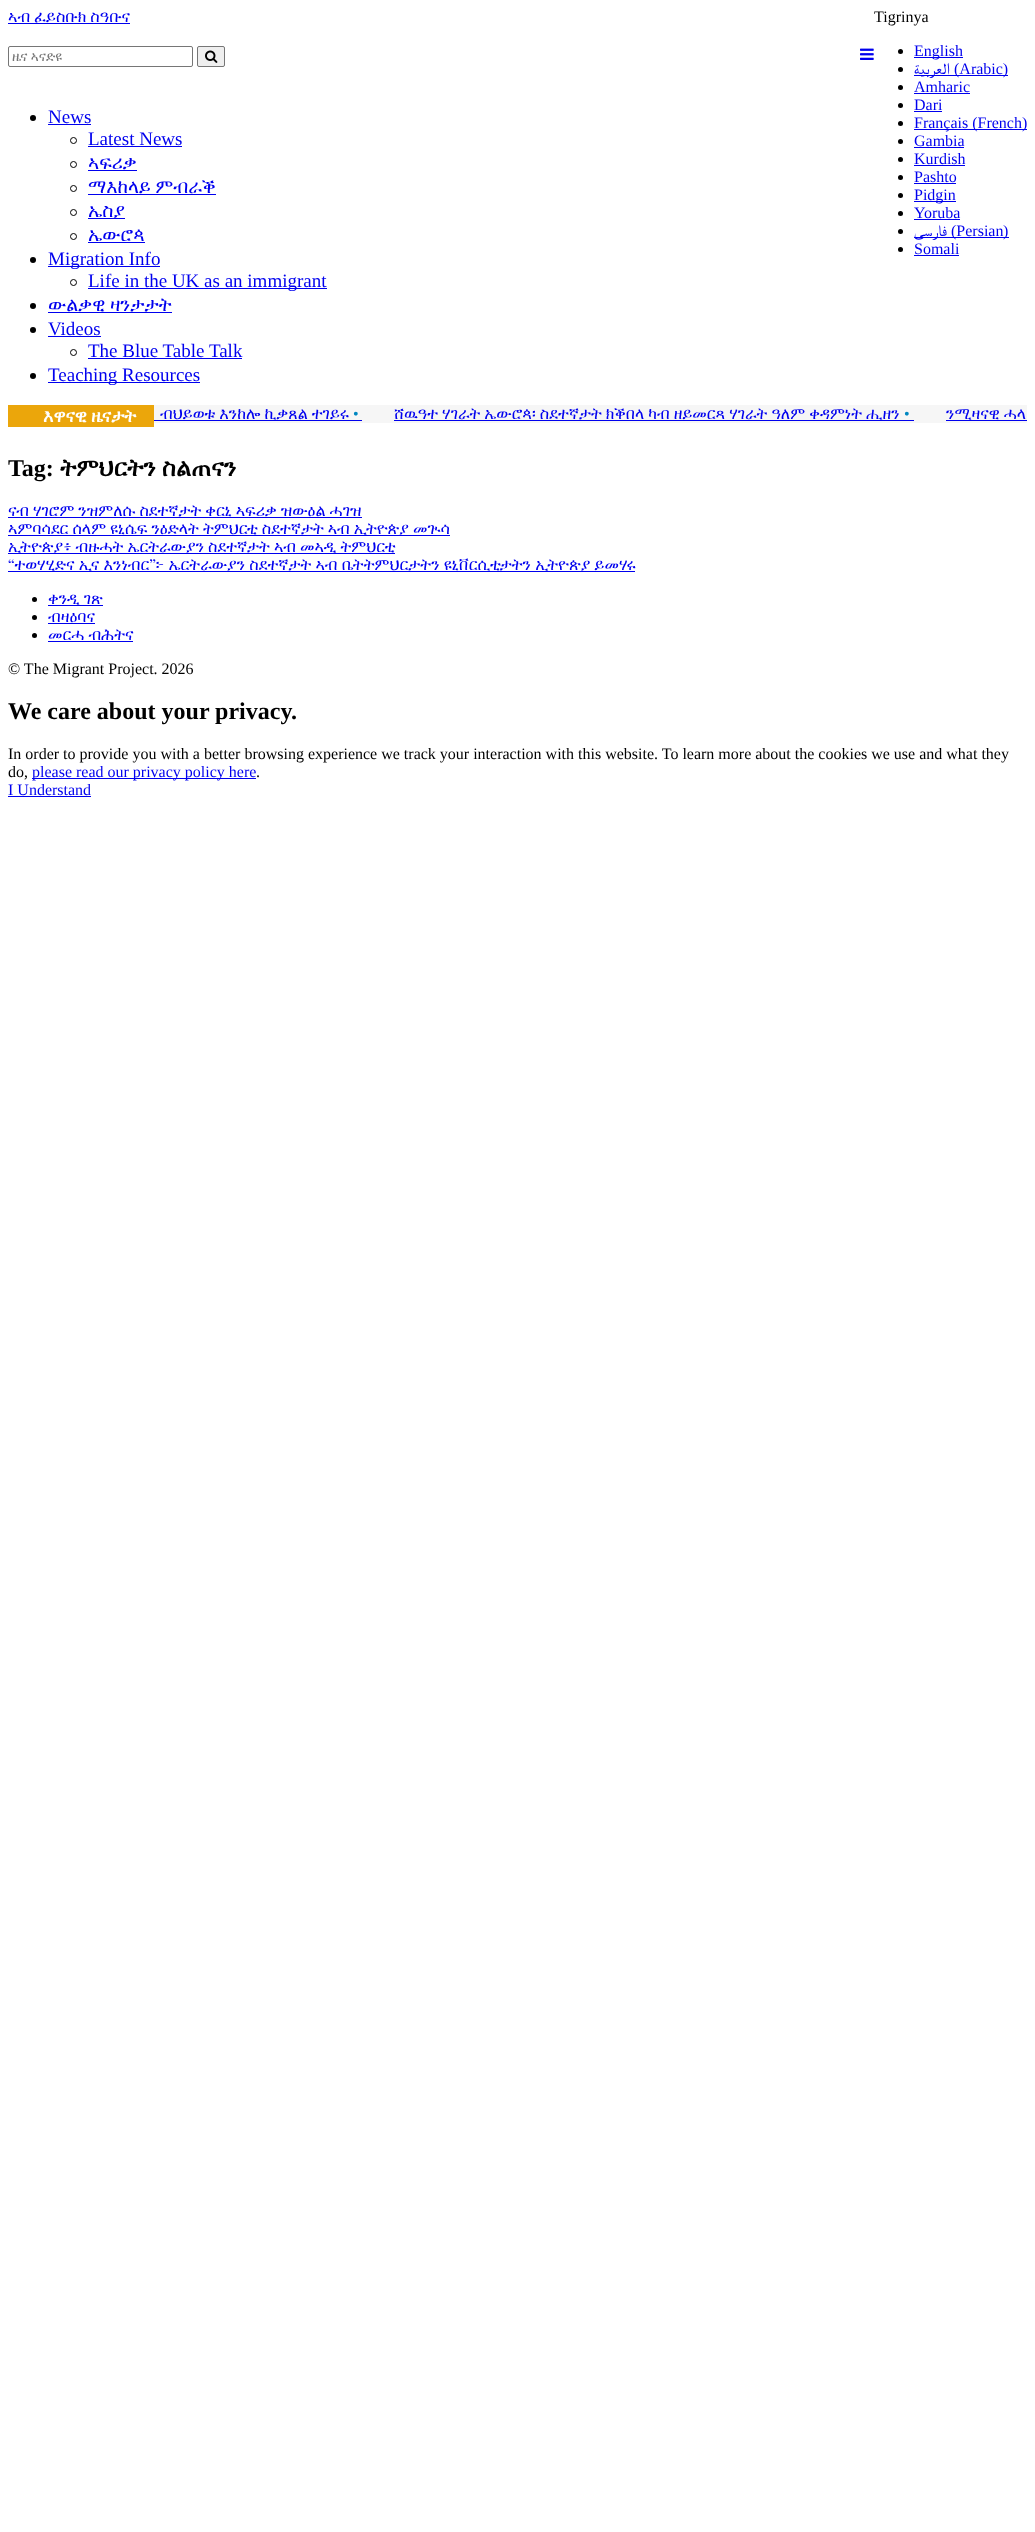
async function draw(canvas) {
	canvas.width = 1035;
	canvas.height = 2532;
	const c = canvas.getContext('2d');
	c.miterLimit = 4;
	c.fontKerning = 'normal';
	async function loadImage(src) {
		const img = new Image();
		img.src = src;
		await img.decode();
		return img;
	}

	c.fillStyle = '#fff';
	c.fillRect(0, 0, 1035, 2532);
	c.font = '16px FreeSerif';
	c.fillStyle = '#00e';
	c.fillText('ኣብ ፈይስቡክ ስዓቡና', 8, 22);
	c.fillRect(8, 23, 122, 1);
	c.font = '16px Liberation Serif';
	c.fillStyle = '#000';
	c.fillText('Tigrinya', 874, 22);
	c.beginPath();
	c.arc(900.5, 51.5, 2.5, 0, 2 * Math.PI);
	c.fill();
	c.fillStyle = '#00e';
	c.fillRect(914, 57, 49, 1);
	c.fillText('English', 914, 56);
	c.fillStyle = '#000';
	c.beginPath();
	c.arc(900.5, 69.5, 2.5, 0, 2 * Math.PI);
	c.fill();
	c.fillStyle = '#00e';
	c.fillRect(914, 75, 94, 1);
	c.direction = 'rtl';
	c.font = '16px FreeSerif';
	c.fillText('العربية', 950, 74);
	c.direction = 'ltr';
	c.font = '16px Liberation Serif';
	c.fillText('(Arabic)', 954, 74);
	c.fillStyle = '#000';
	c.beginPath();
	c.arc(900.5, 87.5, 2.5, 0, 2 * Math.PI);
	c.fill();
	c.fillStyle = '#00e';
	c.fillText('Amharic', 914, 92);
	c.fillRect(914, 93, 56, 1);
	c.fillStyle = '#000';
	c.beginPath();
	c.arc(900.5, 105.5, 2.5, 0, 2 * Math.PI);
	c.fill();
	c.fillStyle = '#00e';
	c.fillText('Dari', 914, 110);
	c.fillRect(914, 111, 28, 1);
	c.fillStyle = '#000';
	c.beginPath();
	c.arc(900.5, 123.5, 2.5, 0, 2 * Math.PI);
	c.fill();
	c.fillStyle = '#00e';
	c.fillRect(914, 129, 113, 1);
	c.fillText('Français (French)', 914, 128);
	c.fillStyle = '#000';
	c.beginPath();
	c.arc(900.5, 141.5, 2.5, 0, 2 * Math.PI);
	c.fill();
	c.fillStyle = '#00e';
	c.fillText('Gambia', 914, 146);
	c.fillRect(914, 147, 50, 1);
	c.fillStyle = '#000';
	c.beginPath();
	c.arc(900.5, 159.5, 2.5, 0, 2 * Math.PI);
	c.fill();
	c.fillStyle = '#00e';
	c.fillText('Kurdish', 914, 164);
	c.fillRect(914, 165, 51, 1);
	c.fillStyle = '#000';
	c.beginPath();
	c.arc(900.5, 177.5, 2.5, 0, 2 * Math.PI);
	c.fill();
	c.fillStyle = '#00e';
	c.fillText('Pashto', 914, 182);
	c.fillRect(914, 183, 42, 1);
	c.fillStyle = '#000';
	c.beginPath();
	c.arc(900.5, 195.5, 2.5, 0, 2 * Math.PI);
	c.fill();
	c.fillStyle = '#00e';
	c.fillRect(914, 201, 42, 1);
	c.fillText('Pidgin', 914, 200);
	c.fillStyle = '#000';
	c.beginPath();
	c.arc(900.5, 213.5, 2.5, 0, 2 * Math.PI);
	c.fill();
	c.fillStyle = '#00e';
	c.fillText('Yoruba', 914, 218);
	c.fillRect(914, 219, 46, 1);
	c.fillStyle = '#000';
	c.beginPath();
	c.arc(900.5, 231.5, 2.5, 0, 2 * Math.PI);
	c.fill();
	c.fillStyle = '#00e';
	c.fillRect(914, 237, 89, 1);
	c.direction = 'rtl';
	c.font = '16px FreeSerif';
	c.fillText('فارسی', 947, 236);
	c.direction = 'ltr';
	c.font = '16px Liberation Serif';
	c.fillText('(Persian', 951, 236);
	c.fillRect(1003, 237, 6, 1);
	c.fillText(')', 1003, 236);
	c.fillStyle = '#000';
	c.beginPath();
	c.arc(900.5, 249.5, 2.5, 0, 2 * Math.PI);
	c.fill();
	c.fillStyle = '#00e';
	c.fillText('Somali', 914, 254);
	c.fillRect(914, 255, 45, 1);
	c.beginPath();
	c.roundRect(8.5, 46.5, 184, 20, 1.5);
	c.strokeStyle = '#767676';
	c.stroke();
	c.font = '13.5px FreeSerif';
	c.fillStyle = '#757575';
	c.fillText('ዜና ኣናድዩ', 12, 61);
	c.fillStyle = '#efefef';
	c.beginPath();
	c.roundRect(197.5, 46.5, 27, 20, 1.5);
	c.fill();
	c.stroke();
	c.drawImage(await loadImage('img1.png'), 205, 50, 13, 13);
	c.drawImage(await loadImage('img2.png'), 860, 48, 14, 12);
	c.fillStyle = '#000';
	c.beginPath();
	c.arc(33, 118, 3, 0, 2 * Math.PI);
	c.fill();
	c.font = '19px Liberation Serif';
	c.fillStyle = '#00e';
	c.fillText('News', 48, 123);
	c.fillRect(48, 124, 43, 1);
	c.beginPath();
	c.arc(73.5, 140.5, 3, 0, 2 * Math.PI);
	c.strokeStyle = '#000';
	c.stroke();
	c.fillText('Latest News', 88, 145);
	c.fillRect(88, 146, 94, 1);
	c.beginPath();
	c.arc(73.5, 164.5, 3, 0, 2 * Math.PI);
	c.stroke();
	c.font = '19px FreeSerif';
	c.fillText('ኣፍሪቃ', 88, 169);
	c.fillRect(88, 170, 49, 1);
	c.beginPath();
	c.arc(73.5, 188.5, 3, 0, 2 * Math.PI);
	c.stroke();
	c.fillText('ማእከላይ ምብራቕ', 88, 193);
	c.fillRect(88, 194, 128, 1);
	c.beginPath();
	c.arc(73.5, 212.5, 3, 0, 2 * Math.PI);
	c.stroke();
	c.fillText('ኤስያ', 88, 217);
	c.fillRect(88, 218, 37, 1);
	c.beginPath();
	c.arc(73.5, 236.5, 3, 0, 2 * Math.PI);
	c.stroke();
	c.fillText('ኤውሮጳ', 88, 241);
	c.fillRect(88, 242, 57, 1);
	c.fillStyle = '#000';
	c.beginPath();
	c.arc(33, 260, 3, 0, 2 * Math.PI);
	c.fill();
	c.fillStyle = '#00e';
	c.fillRect(48, 266, 112, 1);
	c.font = '19px Liberation Serif';
	c.fillText('Migration Info', 48, 265);
	c.beginPath();
	c.arc(73.5, 282.5, 3, 0, 2 * Math.PI);
	c.stroke();
	c.fillRect(88, 288, 239, 1);
	c.fillText('Life in the UK as an immigrant', 88, 287);
	c.fillStyle = '#000';
	c.beginPath();
	c.arc(33, 306, 3, 0, 2 * Math.PI);
	c.fill();
	c.font = '19px FreeSerif';
	c.fillStyle = '#00e';
	c.fillText('ውልቃዊ ዛንታታት', 48, 311);
	c.fillRect(48, 312, 124, 1);
	c.fillStyle = '#000';
	c.beginPath();
	c.arc(33, 330, 3, 0, 2 * Math.PI);
	c.fill();
	c.font = '19px Liberation Serif';
	c.fillStyle = '#00e';
	c.fillText('Videos', 48, 335);
	c.fillRect(48, 336, 53, 1);
	c.beginPath();
	c.arc(73.5, 352.5, 3, 0, 2 * Math.PI);
	c.stroke();
	c.fillText('The Blue Table Talk', 88, 357);
	c.fillRect(88, 358, 154, 1);
	c.fillStyle = '#000';
	c.beginPath();
	c.arc(33, 376, 3, 0, 2 * Math.PI);
	c.fill();
	c.fillStyle = '#00e';
	c.fillRect(48, 382, 152, 1);
	c.fillText('Teaching Resources', 48, 381);
	c.fillStyle = '#eba60b';
	c.fillRect(8, 405, 146, 22);
	c.font = 'bold 17.5px FreeSerif';
	c.fillStyle = '#fff';
	c.fillText('እዋናዊ ዜናታት', 43, 422);
	c.fillStyle = '#f6f6f6';
	c.fillRect(154, 405, 873, 18);
	c.font = '16px FreeSerif';
	c.fillStyle = '#00e';
	c.fillText('ብህይወቱ እንከሎ ኪቃጸል ተገይሩ', 160, 419);
	c.fillRect(154, 420, 208, 1);
	c.font = '16px Liberation Serif';
	c.fillStyle = '#0087c0';
	c.fillText('•', 353, 419);
	c.font = '16px FreeSerif';
	c.fillStyle = '#00e';
	c.fillText('ሸዉዓተ ሃገራት ኤውሮጳ፡ ስደተኛታት ክቕበላ ካብ ዘይመርጻ ሃገራት ዓለም ቀዳምነት ሒዘን', 394, 419);
	c.fillRect(394, 420, 520, 1);
	c.font = '16px Liberation Serif';
	c.fillStyle = '#0087c0';
	c.fillText('•', 904, 419);
	c.font = '16px FreeSerif';
	c.fillStyle = '#00e';
	c.fillText('ንሚዛናዊ ሓላ', 946, 419);
	c.fillRect(946, 420, 81, 1);
	c.font = 'bold 24px Liberation Serif';
	c.fillStyle = '#000';
	c.fillText('Tag:', 8, 476);
	c.font = 'bold 24px FreeSerif';
	c.fillText('ትምህርትን ስልጠናን', 60, 476);
	c.font = '16px FreeSerif';
	c.fillStyle = '#00e';
	c.fillText('ናብ ሃገሮም ንዝምለሱ ስደተኛታት ቀርኒ ኣፍሪቃ ዝውዕል ሓገዝ', 8, 516);
	c.fillRect(8, 517, 354, 1);
	c.fillText('ኣምባሳደር ሰላም ዩኒሴፍ ንዕድላት ትምህርቲ ስደተኛታት ኣብ ኢትዮጵያ መጒሳ', 8, 534);
	c.fillRect(8, 535, 442, 1);
	c.fillText('ኢትዮጵያ፥ ብዙሓት ኤርትራውያን ስደተኛታት ኣብ መኣዲ ትምህርቲ', 8, 552);
	c.fillRect(8, 553, 387, 1);
	c.wordSpacing = '0.25px';
	c.fillText('“ተወሃሂድና ኢና እንነብር”፦ ኤርትራውያን ስደተኛታት ኣብ ቤትትምህርታትን ዩኒቨርሲቲታትን ኢትዮጵያ ይመሃሩ', 8, 570);
	c.fillRect(8, 571, 627, 1);
	c.fillStyle = '#000';
	c.beginPath();
	c.arc(34.5, 599.5, 2.5, 0, 2 * Math.PI);
	c.fill();
	c.wordSpacing = '0px';
	c.fillStyle = '#00e';
	c.fillText('ቀንዲ ገጽ', 48, 604);
	c.fillRect(48, 605, 55, 1);
	c.fillStyle = '#000';
	c.beginPath();
	c.arc(34.5, 617.5, 2.5, 0, 2 * Math.PI);
	c.fill();
	c.fillStyle = '#00e';
	c.fillText('ብዛዕባና', 48, 622);
	c.fillRect(48, 623, 47, 1);
	c.fillStyle = '#000';
	c.beginPath();
	c.arc(34.5, 635.5, 2.5, 0, 2 * Math.PI);
	c.fill();
	c.fillStyle = '#00e';
	c.fillText('መርሓ ብሕትና', 48, 640);
	c.fillRect(48, 641, 85, 1);
	c.font = '16px Liberation Serif';
	c.fillStyle = '#000';
	c.fillText('© The Migrant Project. 2026', 8, 674);
	c.font = 'bold 24px Liberation Serif';
	c.fillText('We care about your privacy.', 8, 719);
	c.font = '16px Liberation Serif';
	c.fillText('In order to provide you with a better browsing experience we track your interaction with this website. To learn more about the cookies we use and what they', 8, 759);
	c.fillText('do,', 8, 777);
	c.fillStyle = '#00e';
	c.fillRect(32, 778, 224, 1);
	c.fillText('please read our privacy policy here', 32, 777);
	c.fillStyle = '#000';
	c.fillText('.', 256, 777);
	c.fillStyle = '#00e';
	c.fillText('I Understand', 8, 795);
	c.fillRect(8, 796, 83, 1);
}

draw(document.querySelector('canvas'));
